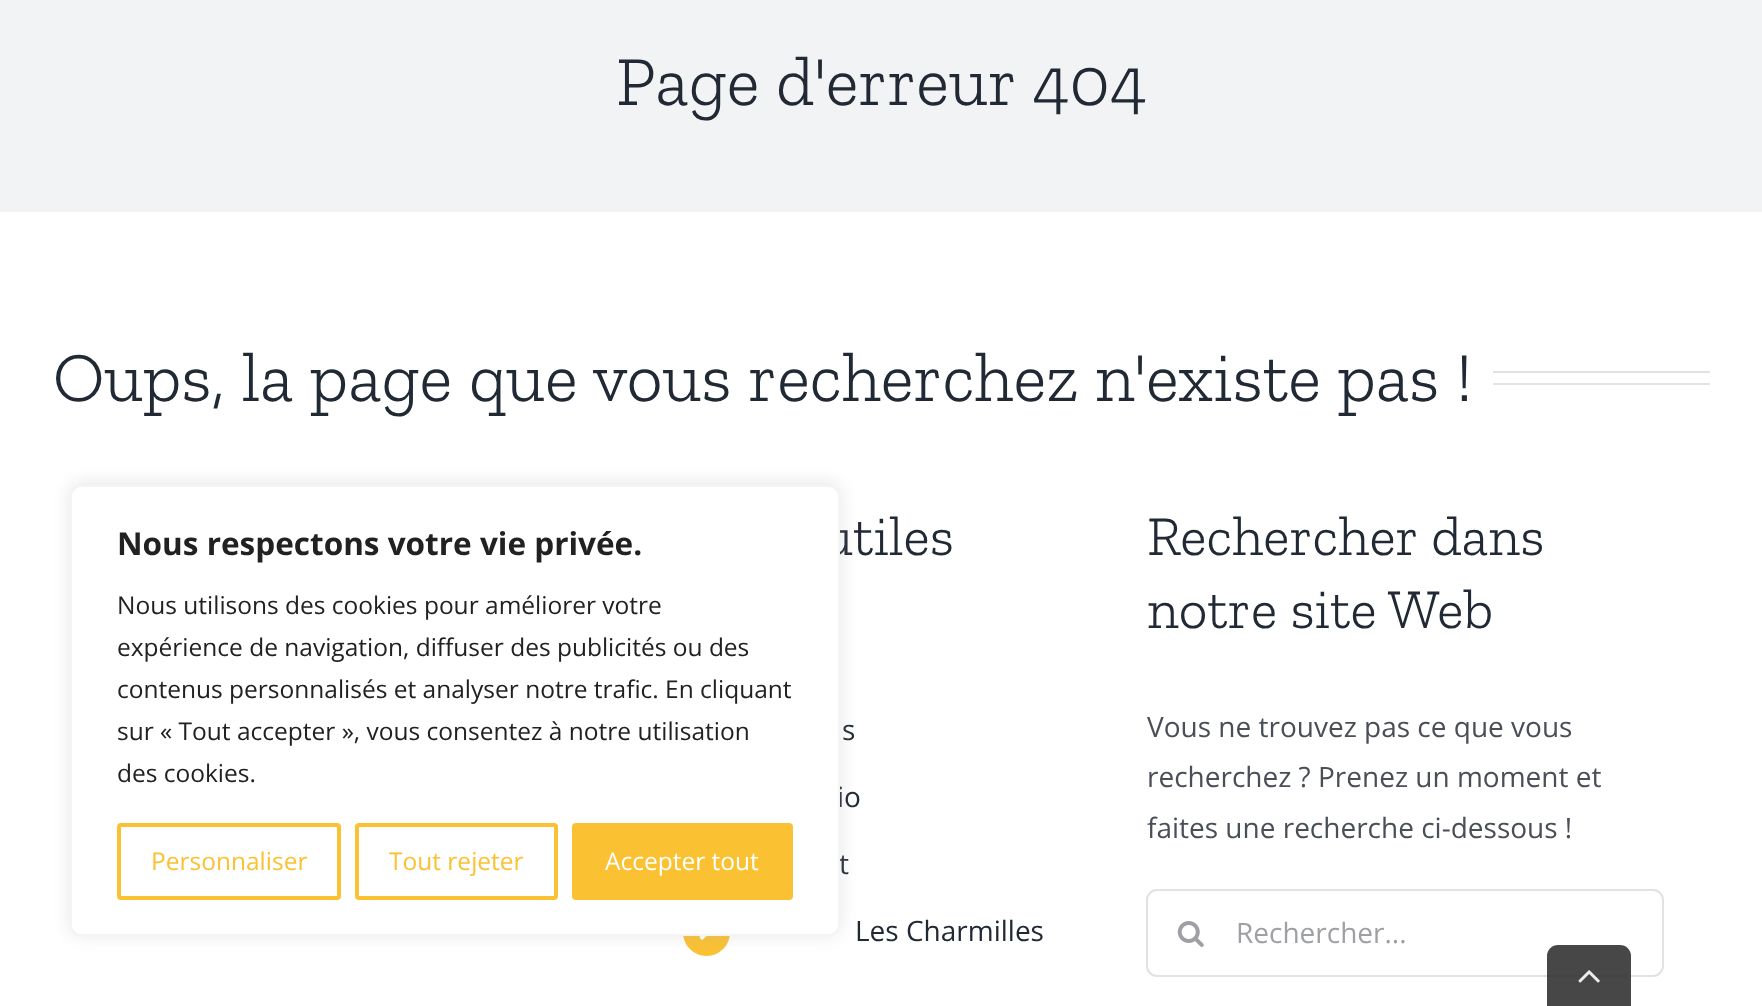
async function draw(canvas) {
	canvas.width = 1762;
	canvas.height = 1006;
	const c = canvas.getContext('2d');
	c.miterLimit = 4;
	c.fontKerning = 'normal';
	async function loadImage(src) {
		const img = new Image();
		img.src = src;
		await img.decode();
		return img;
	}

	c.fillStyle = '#fff';
	c.fillRect(0, 0, 1762, 1006);
	c.fillStyle = '#f2f3f5';
	c.fillRect(0, 0, 1762, 212);
	c.font = '300 70px Zilla Slab';
	c.fillStyle = '#212934';
	c.fillText('Page d\'erreur 404', 616, 105);
	c.fillText('Oups, la page que vous recherchez n\'existe pas !', 53, 401);
	c.fillStyle = '#e2e2e2';
	c.fillRect(1493, 371, 217, 2);
	c.fillRect(1493, 383, 217, 2);
	c.font = '300 56px Zilla Slab';
	c.fillStyle = '#212934';
	c.fillText('utiles', 822, 555);
	c.font = '28px Open Sans';
	for (const [text, x, y] of [
		['s', 842, 740],
		['io', 837, 807],
		['t', 839, 874],
	]) {
		c.fillText(text, x, y);
	}
	c.fillStyle = '#fac133';
	c.beginPath();
	c.roundRect(683, 908, 47, 48, 23.5);
	c.fill();
	c.drawImage(await loadImage('img1.png'), 699, 936, 8, 4);
	c.fillStyle = '#212934';
	c.fillText('Les Charmilles', 855, 941);
	c.font = '300 56px Zilla Slab';
	c.fillText('Rechercher dans', 1147, 555);
	c.fillText('notre site Web', 1147, 628);
	c.font = '28px Open Sans';
	c.fillStyle = '#4a4e57';
	for (const [text, x, y] of [
		['Vous ne trouvez pas ce que vous', 1147, 737],
		['recherchez ? Prenez un moment et', 1147, 787],
		['faites une recherche ci-dessous !', 1147, 838],
	]) {
		c.fillText(text, x, y);
	}
	c.beginPath();
	c.roundRect(1147, 890, 516, 86, 10);
	c.strokeStyle = '#e2e2e2';
	c.lineWidth = 2;
	c.stroke();
	c.drawImage(await loadImage('img2.png'), 1177, 921, 27, 26);
	c.fillStyle = '#9ea0a4';
	c.fillText('Rechercher...', 1236, 943);
	c.fillStyle = '#acabab4d';
	c.filter = 'blur(9px)';
	c.beginPath();
	c.roundRect(70, 483, 770, 452, 11);
	c.fill();
	c.filter = 'none';
	c.fillStyle = '#fff';
	c.beginPath();
	c.roundRect(71, 486, 768, 449, 10);
	c.fill();
	c.strokeStyle = '#f4f4f4';
	c.stroke();
	c.font = 'bold 31.5px Open Sans';
	c.fillStyle = '#212121';
	c.fillText('Nous respectons votre vie privée.', 117, 555);
	c.font = '24.5px Open Sans';
	for (const [text, x, y] of [
		['Nous utilisons des cookies pour améliorer votre', 117, 614],
		['expérience de navigation, diffuser des publicités ou des', 117, 656],
		['contenus personnalisés et analyser notre trafic. En cliquant', 117, 698],
		['sur « Tout accepter », vous consentez à notre utilisation', 117, 740],
		['des cookies.', 117, 782],
	]) {
		c.fillText(text, x, y);
	}
	c.beginPath();
	c.roundRect(119, 825, 220, 73, 2);
	c.strokeStyle = '#fac133';
	c.lineWidth = 4;
	c.stroke();
	c.fillStyle = '#fac133';
	c.fillText('Personnaliser', 151, 870);
	c.beginPath();
	c.roundRect(357, 825, 199, 73, 2);
	c.stroke();
	c.fillText('Tout rejeter', 389, 870);
	c.beginPath();
	c.roundRect(574, 825, 217, 73, 2);
	c.fill();
	c.stroke();
	c.fillStyle = '#fff';
	c.fillText('Accepter tout', 605, 870);
	c.fillStyle = '#333333e6';
	c.beginPath();
	c.roundRect(1547, 945, 84, 61, [11, 11, 0, 0]);
	c.fill();
	c.drawImage(await loadImage('img3.png'), 1578, 970, 22, 13);
}

draw(document.querySelector('canvas'));
